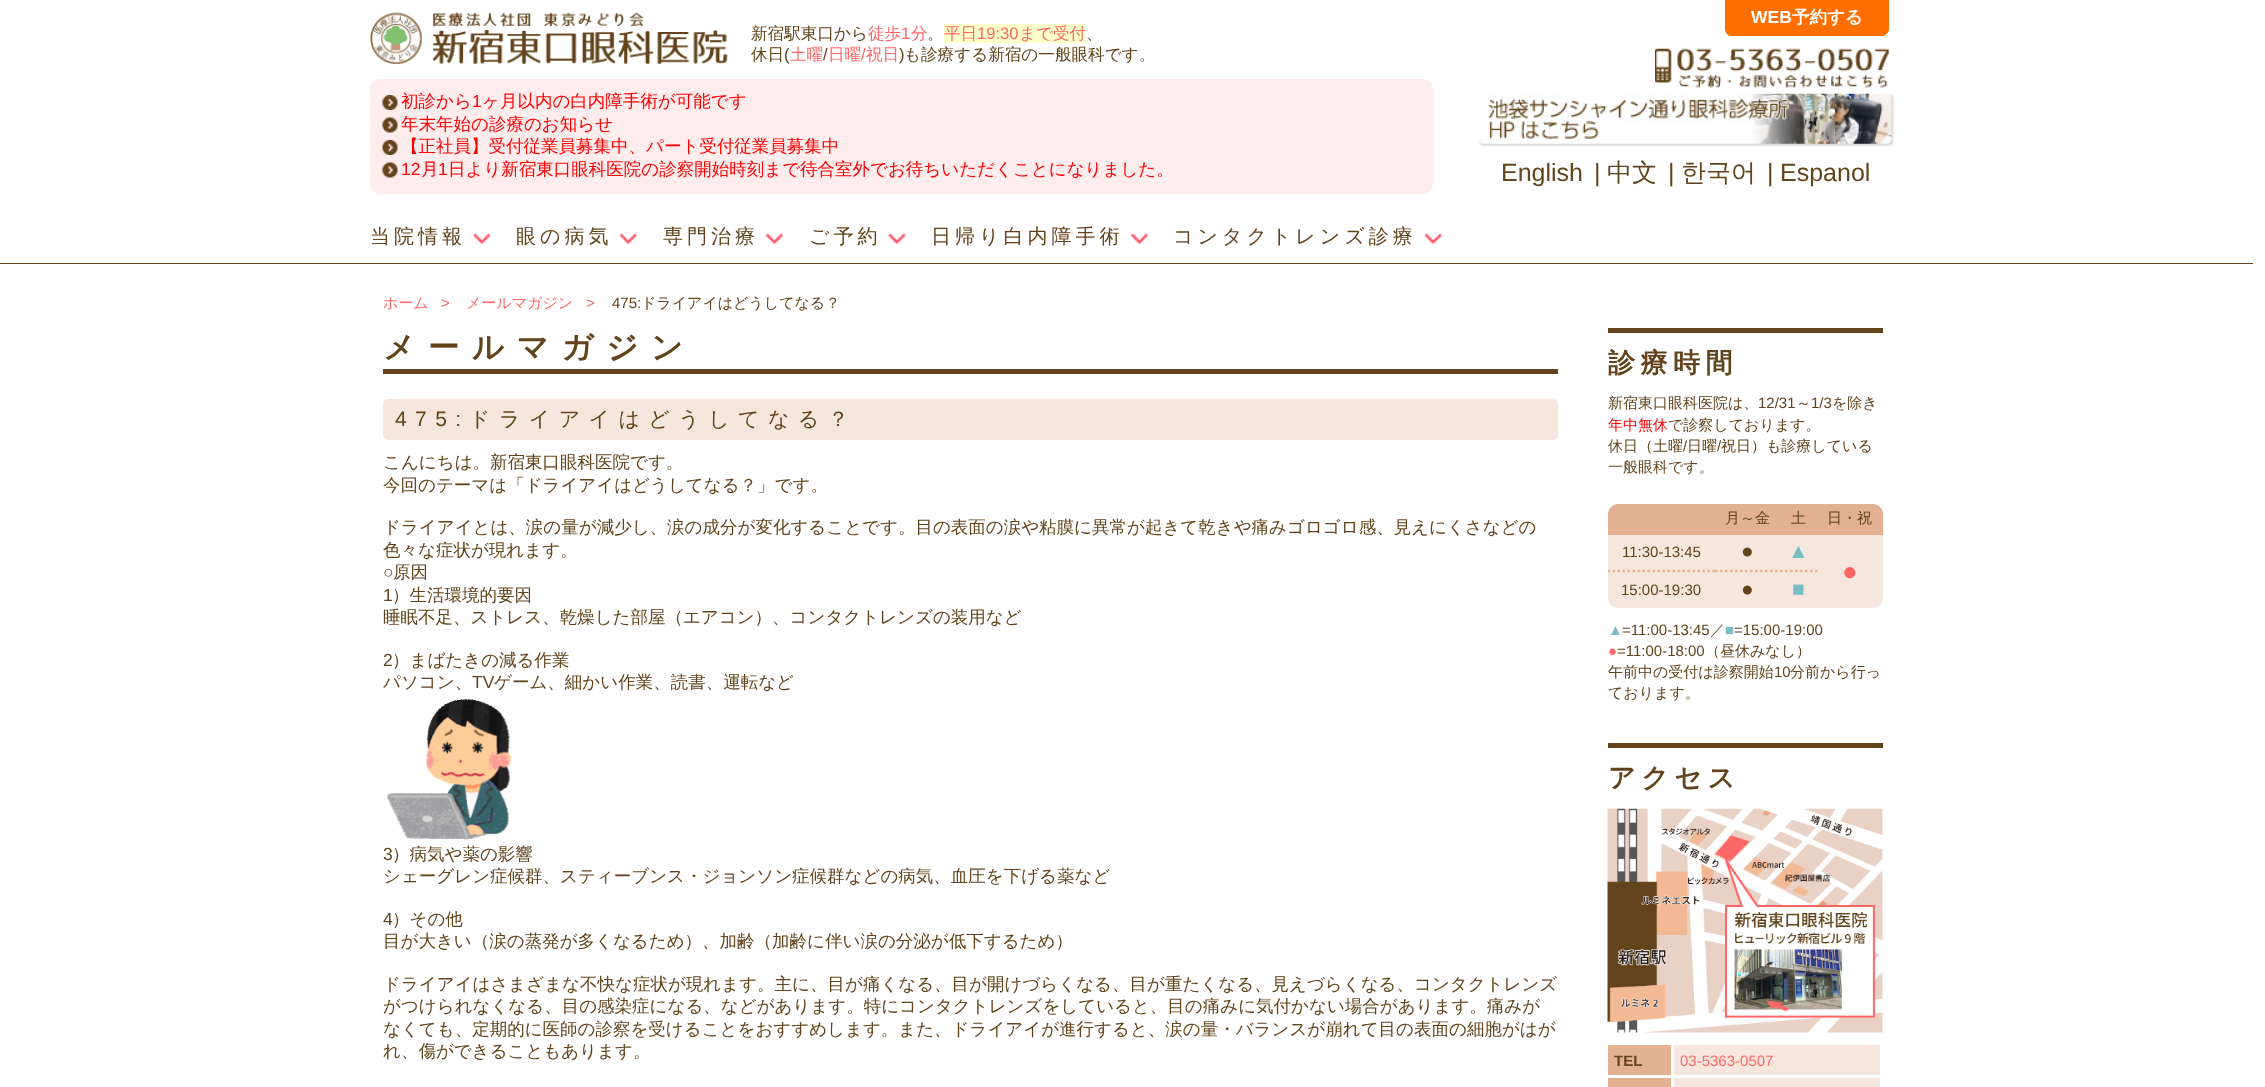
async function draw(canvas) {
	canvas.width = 2265;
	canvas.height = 1087;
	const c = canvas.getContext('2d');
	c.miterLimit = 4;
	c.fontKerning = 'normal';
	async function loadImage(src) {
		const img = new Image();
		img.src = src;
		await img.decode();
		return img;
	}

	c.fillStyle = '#fff';
	c.fillRect(0, 0, 2265, 1087);
	c.fillStyle = '#ff6f00';
	c.beginPath();
	c.roundRect(1725, 0, 164, 36, [0, 0, 8, 8]);
	c.fill();
	c.beginPath();
	c.moveTo(1725, 0);
	c.lineTo(1889, 0);
	c.lineTo(1889, 29);
	c.bezierCurveTo(1889, 33, 1885, 36, 1881, 36);
	c.lineTo(1732, 36);
	c.bezierCurveTo(1728, 36, 1725, 33, 1725, 29);
	c.closePath();
	c.moveTo(1726, 0);
	c.lineTo(1888, 0);
	c.lineTo(1888, 29);
	c.bezierCurveTo(1888, 32, 1885, 35, 1881, 35);
	c.lineTo(1732, 35);
	c.bezierCurveTo(1729, 35, 1726, 32, 1726, 29);
	c.closePath();
	c.fill('evenodd');
	c.font = 'bold 17.5px Liberation Sans';
	c.fillStyle = '#fff';
	c.fillText('WEB', 1751, 23);
	c.font = 'bold 17.5px WenQuanYi Zen Hei';
	c.fillText('予約する', 1792, 23);
	c.drawImage(await loadImage('img1.png'), 1655, 48, 234, 40);
	c.drawImage(await loadImage('img2.png'), 1479, 93, 416, 54);
	c.drawImage(await loadImage('img3.png'), 370, 12, 358, 52);
	c.font = '500 16.6px WenQuanYi Zen Hei';
	c.fillStyle = '#62431b';
	c.fillText('新宿駅東口から', 751, 39);
	c.fillStyle = '#ff6767';
	c.fillText('徒歩', 868, 39);
	c.font = '16.6px Liberation Sans';
	c.fillText('1', 901, 39);
	c.font = '500 16.6px WenQuanYi Zen Hei';
	c.fillText('分', 911, 39);
	c.fillStyle = '#62431b';
	c.fillText('。', 927, 39);
	c.fillStyle = '#ffc';
	c.fillRect(944, 24, 142, 19);
	c.fillStyle = '#ff6767';
	c.fillText('平日', 944, 39);
	c.font = '16.6px Liberation Sans';
	c.fillText('19:30', 977, 39);
	c.font = '500 16.6px WenQuanYi Zen Hei';
	c.fillText('まで受付', 1019, 39);
	c.fillStyle = '#62431b';
	c.fillText('、', 1086, 39);
	c.fillText('休日', 751, 60);
	c.font = '16.6px Liberation Sans';
	c.fillText('(', 784, 60);
	c.font = '500 16.6px WenQuanYi Zen Hei';
	c.fillStyle = '#ff6767';
	c.fillText('土曜', 790, 60);
	c.font = '16.6px Liberation Sans';
	c.fillStyle = '#62431b';
	c.fillText('/', 823, 60);
	c.font = '500 16.6px WenQuanYi Zen Hei';
	c.fillStyle = '#ff6767';
	c.fillText('日曜', 828, 60);
	c.font = '16.6px Liberation Sans';
	c.fillText('/', 861, 60);
	c.font = '500 16.6px WenQuanYi Zen Hei';
	c.fillText('祝日', 866, 60);
	c.font = '16.6px Liberation Sans';
	c.fillStyle = '#62431b';
	c.fillText(')', 899, 60);
	c.font = '500 16.6px WenQuanYi Zen Hei';
	c.fillText('も診療する新宿の一般眼科です。', 904, 60);
	c.fillStyle = '#ffecec';
	c.beginPath();
	c.roundRect(370, 79, 1063, 115, 10);
	c.fill();
	c.drawImage(await loadImage('img4.png'), 382, 95, 16, 15);
	c.font = '500 17.5px WenQuanYi Zen Hei';
	c.fillStyle = '#f00';
	c.fillText('初診から', 401, 107);
	c.font = '17.5px Liberation Sans';
	c.fillText('1', 472, 107);
	c.font = '500 17.5px WenQuanYi Zen Hei';
	c.fillText('ヶ月以内の白内障手術が可能です', 482, 107);
	c.drawImage(await loadImage('img5.png'), 382, 117, 16, 16);
	c.fillText('年末年始の診療のお知らせ', 401, 130);
	c.drawImage(await loadImage('img4.png'), 382, 140, 16, 15);
	c.fillText('【正社員】受付従業員募集中、パート受付従業員募集中', 401, 152);
	c.drawImage(await loadImage('img5.png'), 382, 162, 16, 16);
	c.font = '17.5px Liberation Sans';
	c.fillText('12', 401, 175);
	c.font = '500 17.5px WenQuanYi Zen Hei';
	c.fillText('月', 421, 175);
	c.font = '17.5px Liberation Sans';
	c.fillText('1', 438, 175);
	c.font = '500 17.5px WenQuanYi Zen Hei';
	c.fillText('日より新宿東口眼科医院の診察開始時刻まで待合室外でお待ちいただくことになりました。', 448, 175);
	c.font = '25px Liberation Sans';
	c.fillStyle = '#62431b';
	c.fillText('English', 1501, 181);
	c.fillText('|', 1594, 181);
	c.font = '500 25px WenQuanYi Zen Hei';
	c.fillText('中文', 1607, 181);
	c.font = '25px Liberation Sans';
	c.fillText('|', 1668, 181);
	c.font = '500 25px WenQuanYi Zen Hei';
	c.fillText('한국어', 1681, 181);
	c.font = '25px Liberation Sans';
	c.fillText('|', 1767, 181);
	c.fillText('Espanol', 1780, 181);
	c.drawImage(await loadImage('img6.png'), 472, 233, 19, 11);
	c.letterSpacing = '4px';
	c.font = '500 20px WenQuanYi Zen Hei';
	c.fillText('当院情報', 370, 243);
	c.drawImage(await loadImage('img7.png'), 619, 233, 19, 11);
	c.fillText('眼の病気', 516, 243);
	c.drawImage(await loadImage('img8.png'), 765, 233, 19, 11);
	c.fillText('専門治療', 663, 243);
	c.drawImage(await loadImage('img6.png'), 887, 233, 19, 11);
	c.fillText('ご予約', 809, 243);
	c.drawImage(await loadImage('img9.png'), 1130, 233, 19, 11);
	c.fillText('日帰り白内障手術', 931, 243);
	c.drawImage(await loadImage('img10.png'), 1424, 233, 19, 11);
	c.fillText('コンタクトレンズ診療', 1173, 243);
	c.fillRect(0, 263, 2253, 1);
	c.letterSpacing = '0px';
	c.font = '500 15px WenQuanYi Zen Hei';
	c.fillStyle = '#ff6767';
	c.fillText('ホーム', 383, 308);
	c.font = '15px Liberation Sans';
	c.fillText('>', 441, 308);
	c.font = '500 15px WenQuanYi Zen Hei';
	c.fillText('メールマガジン', 466, 308);
	c.font = '15px Liberation Sans';
	c.fillText('>', 586, 308);
	c.fillStyle = '#62431b';
	c.fillText('475:', 612, 308);
	c.font = '500 15px WenQuanYi Zen Hei';
	c.fillText('ドライアイはどうしてなる？', 641, 308);
	c.fillRect(383, 369, 1175, 5);
	c.letterSpacing = '12.5px';
	c.font = 'bold 31.5px WenQuanYi Zen Hei';
	c.fillText('メールマガジン', 383, 358);
	c.fillStyle = '#f5e7dd';
	c.beginPath();
	c.roundRect(383, 399, 1175, 41, 5);
	c.fill();
	c.letterSpacing = '8.4px';
	c.font = '21px Liberation Sans';
	c.fillStyle = '#62431b';
	c.fillText('475:', 395, 426);
	c.font = '500 21px WenQuanYi Zen Hei';
	c.fillText('ドライアイはどうしてなる？', 469, 426);
	c.letterSpacing = '0px';
	c.font = '500 17.5px WenQuanYi Zen Hei';
	for (const [text, x, y] of [
		['こんにちは。新宿東口眼科医院です。', 383, 468],
		['今回のテーマは「ドライアイはどうしてなる？」です。', 383, 491],
		['ドライアイとは、涙の量が減少し、涙の成分が変化することです。目の表面の涙や粘膜に異常が起きて乾きや痛みゴロゴロ感、見えにくさなどの', 383, 533],
		['色々な症状が現れます。', 383, 556],
	]) {
		c.fillText(text, x, y);
	}
	c.font = '17.5px Liberation Sans';
	c.fillText('○', 383, 578);
	c.font = '500 17.5px WenQuanYi Zen Hei';
	c.fillText('原因', 393, 578);
	c.font = '17.5px Liberation Sans';
	c.fillText('1', 383, 601);
	c.font = '500 17.5px WenQuanYi Zen Hei';
	c.fillText('）生活環境的要因', 392, 601);
	c.fillText('睡眠不足、ストレス、乾燥した部屋（エアコン）、コンタクトレンズの装用など', 383, 623);
	c.font = '17.5px Liberation Sans';
	c.fillText('2', 383, 666);
	c.font = '500 17.5px WenQuanYi Zen Hei';
	c.fillText('）まばたきの減る作業', 392, 666);
	c.fillText('パソコン、', 383, 688);
	c.font = '17.5px Liberation Sans';
	c.fillText('TV', 472, 688);
	c.font = '500 17.5px WenQuanYi Zen Hei';
	c.fillText('ゲーム、細かい作業、読書、運転など', 494, 688);
	c.drawImage(await loadImage('img11.png'), 387, 699, 125, 141);
	c.font = '17.5px Liberation Sans';
	c.fillText('3', 383, 860);
	c.font = '500 17.5px WenQuanYi Zen Hei';
	c.fillText('）病気や薬の影響', 392, 860);
	c.fillText('シェーグレン症候群、スティーブンス・ジョンソン症候群などの病気、血圧を下げる薬など', 383, 882);
	c.font = '17.5px Liberation Sans';
	c.fillText('4', 383, 925);
	c.font = '500 17.5px WenQuanYi Zen Hei';
	for (const [text, x, y] of [
		['）その他', 392, 925],
		['目が大きい（涙の蒸発が多くなるため）、加齢（加齢に伴い涙の分泌が低下するため）', 383, 947],
		['ドライアイはさまざまな不快な症状が現れます。主に、目が痛くなる、目が開けづらくなる、目が重たくなる、見えづらくなる、コンタクトレンズ', 383, 990],
		['がつけられなくなる、目の感染症になる、などがあります。特にコンタクトレンズをしていると、目の痛みに気付かない場合があります。痛みが', 383, 1012],
		['なくても、定期的に医師の診察を受けることをおすすめします。また、ドライアイが進行すると、涙の量・バランスが崩れて目の表面の細胞がはが', 383, 1035],
		['れ、傷ができることもあります。', 383, 1057],
	]) {
		c.fillText(text, x, y);
	}
	c.fillRect(1608, 328, 275, 5);
	c.letterSpacing = '5.5px';
	c.font = 'bold 27px WenQuanYi Zen Hei';
	c.fillText('診療時間', 1608, 372);
	c.letterSpacing = '0px';
	c.font = '500 15px WenQuanYi Zen Hei';
	c.fillText('新宿東口眼科医院は、', 1608, 408);
	c.font = '15px Liberation Sans';
	c.fillText('12/31', 1758, 408);
	c.font = '500 15px WenQuanYi Zen Hei';
	c.fillText('～', 1796, 408);
	c.font = '15px Liberation Sans';
	c.fillText('1/3', 1811, 408);
	c.font = '500 15px WenQuanYi Zen Hei';
	c.fillText('を除き', 1832, 408);
	c.fillStyle = '#f00';
	c.fillText('年中無休', 1608, 430);
	c.fillStyle = '#62431b';
	c.fillText('で診察しております。', 1668, 430);
	c.fillText('休日（土曜', 1608, 451);
	c.font = '15px Liberation Sans';
	c.fillText('/', 1683, 451);
	c.font = '500 15px WenQuanYi Zen Hei';
	c.fillText('日曜', 1687, 451);
	c.font = '15px Liberation Sans';
	c.fillText('/', 1717, 451);
	c.font = '500 15px WenQuanYi Zen Hei';
	c.fillText('祝日）も診療している', 1721, 451);
	c.fillText('一般眼科です。', 1608, 472);
	c.fillStyle = '#f5e7dd';
	c.beginPath();
	c.roundRect(1608, 504, 275, 104, 10);
	c.fill();
	c.fillStyle = '#e3b191';
	c.beginPath();
	c.roundRect(1608, 504, 275, 31, [10, 10, 0, 0]);
	c.fill();
	c.fillStyle = '#62431b';
	for (const [text, x, y] of [
		['月～金', 1725, 523],
		['土', 1791, 523],
		['日・祝', 1827, 523],
	]) {
		c.fillText(text, x, y);
	}
	c.font = '15px Liberation Sans';
	c.fillText('11:30-13:45', 1622, 557);
	c.font = '21px Liberation Sans';
	c.fillText('●', 1741, 558);
	c.fillStyle = '#76bdc4';
	c.fillText('▲', 1788, 558);
	c.font = '26px Liberation Sans';
	c.fillStyle = '#ff6767';
	c.fillText('●', 1842, 580);
	c.save();
	c.beginPath();
	c.roundRect(1608, 504, 275, 104, 10);
	c.clip();
	c.beginPath();
	c.moveTo(1607.5, 571);
	c.lineTo(1715, 571);
	c.strokeStyle = '#e3b191';
	c.lineWidth = 2.5;
	c.setLineDash([2.5, 2.5]);
	c.stroke();
	c.restore();
	c.font = '15px Liberation Sans';
	c.fillStyle = '#62431b';
	c.fillText('15:00-19:30', 1621, 595);
	c.beginPath();
	c.moveTo(1715, 571);
	c.lineTo(1780, 571);
	c.strokeStyle = '#e3b191';
	c.lineWidth = 2.5;
	c.setLineDash([2.5, 2.5]);
	c.stroke();
	c.font = '21px Liberation Sans';
	c.fillText('●', 1741, 596);
	c.beginPath();
	c.moveTo(1780, 571);
	c.lineTo(1817.5, 571);
	c.stroke();
	c.fillStyle = '#76bdc4';
	c.fillText('■', 1792, 596);
	c.font = '15px Liberation Sans';
	c.fillText('▲', 1608, 635);
	c.fillStyle = '#62431b';
	c.fillText('=11:00-13:45', 1622, 635);
	c.font = '500 15px WenQuanYi Zen Hei';
	c.fillText('／', 1710, 635);
	c.font = '15px Liberation Sans';
	c.fillStyle = '#76bdc4';
	c.fillText('■', 1725, 635);
	c.fillStyle = '#62431b';
	c.fillText('=15:00-19:00', 1734, 635);
	c.fillStyle = '#ff6767';
	c.fillText('●', 1608, 656);
	c.fillStyle = '#62431b';
	c.fillText('=11:00-18:00', 1617, 656);
	c.font = '500 15px WenQuanYi Zen Hei';
	c.fillText('（昼休みなし）', 1705, 656);
	c.fillText('午前中の受付は診察開始', 1608, 677);
	c.font = '15px Liberation Sans';
	c.fillText('10', 1774, 677);
	c.font = '500 15px WenQuanYi Zen Hei';
	c.fillText('分前から行っ', 1790, 677);
	c.fillText('ております。', 1608, 698);
	c.fillRect(1608, 743, 275, 5);
	c.letterSpacing = '5.5px';
	c.font = 'bold 27px WenQuanYi Zen Hei';
	c.fillText('アクセス', 1608, 787);
	c.drawImage(await loadImage('img12.png'), 1607, 808, 276, 225);
	c.fillStyle = '#e3b191';
	c.fillRect(1608, 1045, 63, 30);
	c.letterSpacing = '0px';
	c.font = 'bold 15px Liberation Sans';
	c.fillStyle = '#62431b';
	c.fillText('TEL', 1614, 1066);
	c.fillStyle = '#f5e7dd';
	c.fillRect(1674, 1045, 206, 30);
	c.font = '15px Liberation Sans';
	c.fillStyle = '#ff6767';
	c.fillText('03-5363-0507', 1680, 1066);
	c.fillStyle = '#e3b191';
	c.fillRect(1608, 1078, 63, 9);
	c.fillStyle = '#f5e7dd';
	c.fillRect(1674, 1078, 206, 9);
}

draw(document.querySelector('canvas'));
